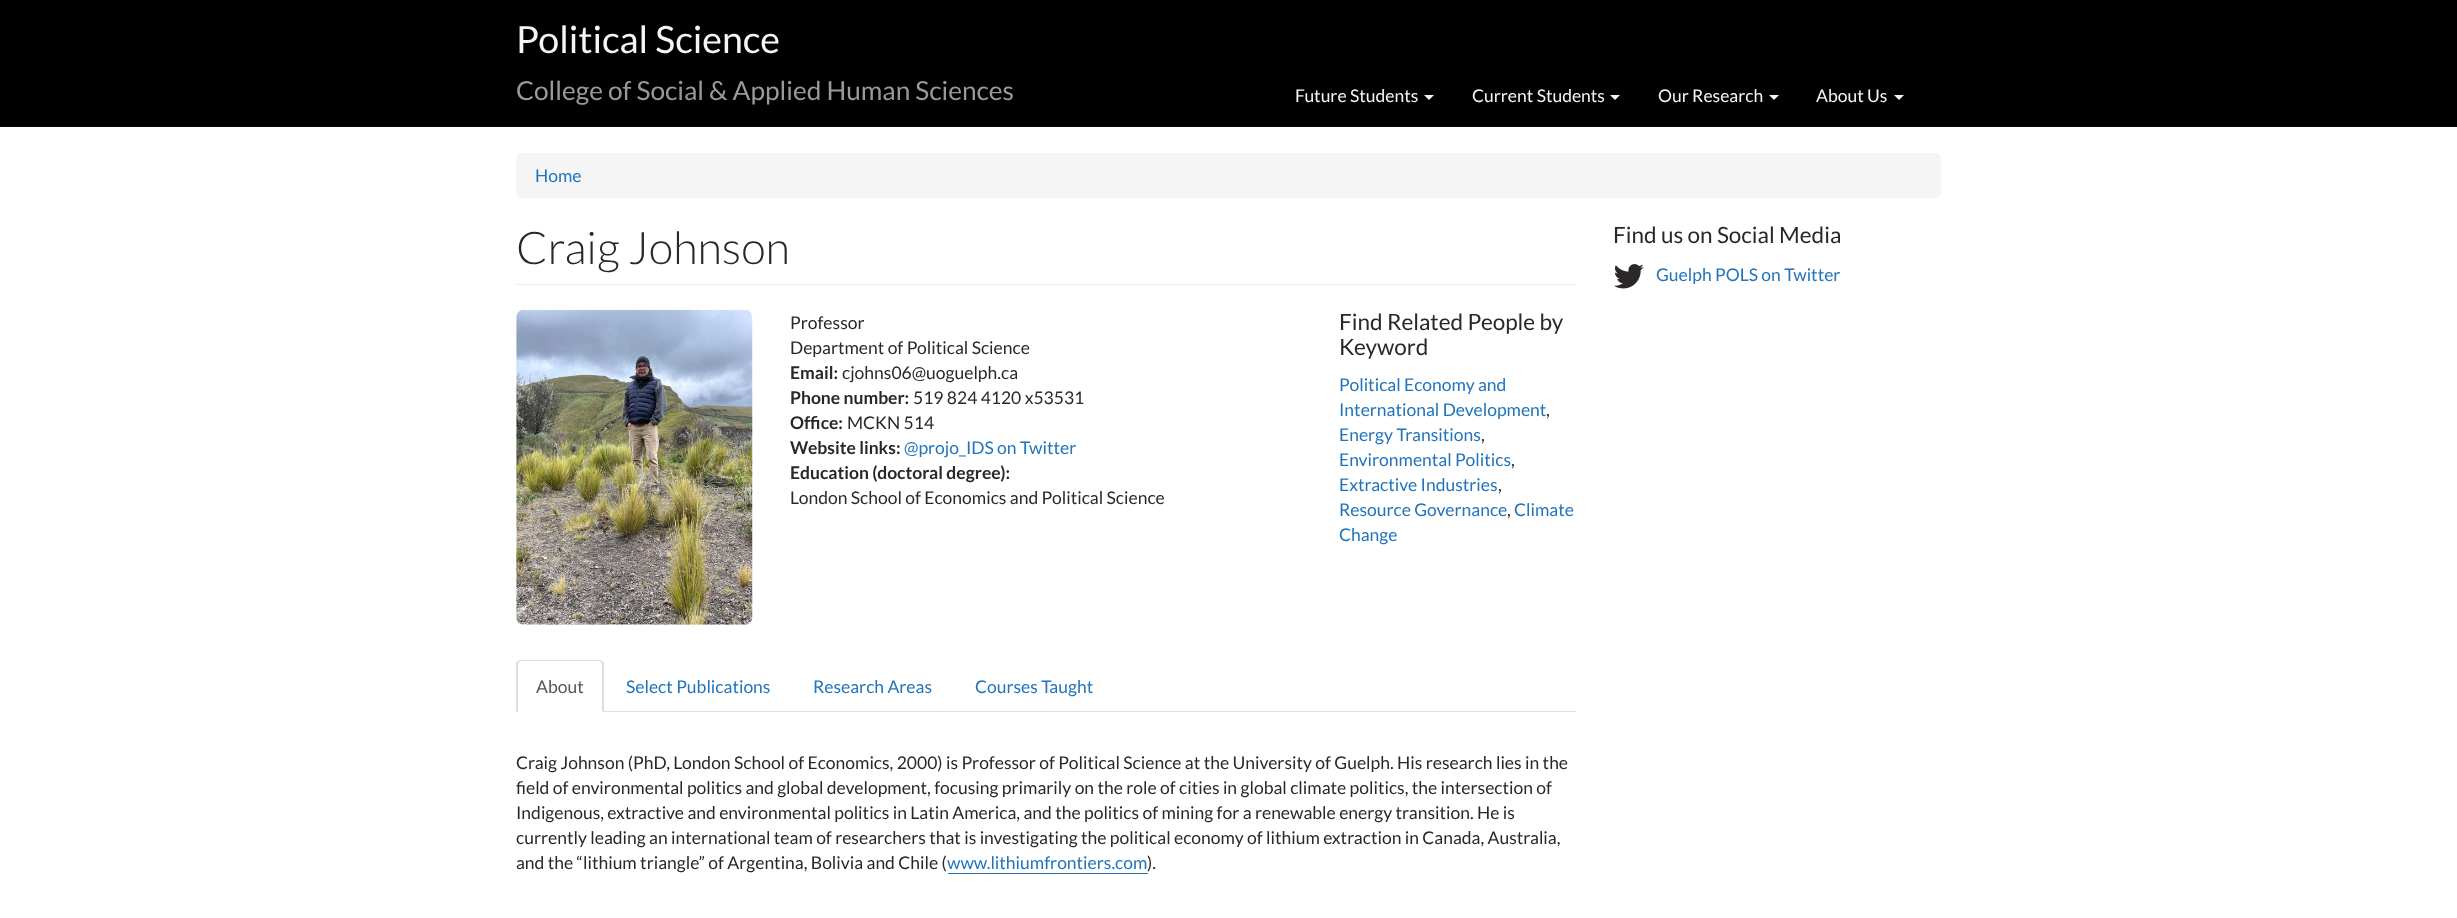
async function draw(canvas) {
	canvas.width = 2457;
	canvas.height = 918;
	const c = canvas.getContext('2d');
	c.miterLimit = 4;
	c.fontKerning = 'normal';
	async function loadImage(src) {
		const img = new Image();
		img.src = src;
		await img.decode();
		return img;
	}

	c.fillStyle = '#fff';
	c.fillRect(0, 0, 2457, 918);
	c.fillStyle = '#000';
	c.fillRect(0, 0, 2457, 126);
	c.fillStyle = '#080808';
	c.fillRect(0, 126, 2457, 1);
	c.font = '37.5px Lato';
	c.fillStyle = '#f5f5f5';
	c.fillText('Political Science', 516, 53);
	c.font = '26.25px Lato';
	c.fillStyle = '#999';
	c.fillText('College of Social & Applied Human Sciences', 516, 100);
	c.font = '17.5px Lato';
	c.fillStyle = '#f5f5f5';
	c.fillText('Future Students', 1295, 102);
	c.beginPath();
	c.moveTo(1424, 95);
	c.lineTo(1434, 95);
	c.lineTo(1429, 100);
	c.closePath();
	c.fill();
	c.fillText('Current Students', 1472, 102);
	c.beginPath();
	c.moveTo(1610, 95);
	c.lineTo(1620, 95);
	c.lineTo(1615, 100);
	c.closePath();
	c.fill();
	c.fillText('Our Research', 1658, 102);
	c.beginPath();
	c.moveTo(1769, 95);
	c.lineTo(1779, 95);
	c.lineTo(1774, 100);
	c.closePath();
	c.fill();
	c.fillText('About Us', 1816, 102);
	c.beginPath();
	c.moveTo(1894, 95);
	c.lineTo(1904, 95);
	c.lineTo(1899, 100);
	c.closePath();
	c.fill();
	c.beginPath();
	c.roundRect(516, 153, 1425, 45, 5);
	c.fill();
	c.fillStyle = '#2174bb';
	c.fillText('Home', 535, 182);
	c.fillStyle = '#eee';
	c.fillRect(516, 284, 1060, 1);
	c.font = '300 45px Lato';
	c.fillStyle = '#2c2727';
	c.fillText('Craig Johnson', 516, 264);
	c.drawImage(await loadImage('img1.png'), 516, 309, 237, 316);
	c.font = '17.5px Lato';
	c.fillText('Professor', 790, 329);
	c.fillText('Department of Political Science', 790, 354);
	c.font = 'bold 17.5px Lato';
	c.fillText('Email:', 790, 379);
	c.font = '17.5px Lato';
	c.fillText('cjohns06@uoguelph.ca', 842, 379);
	c.font = 'bold 17.5px Lato';
	c.fillText('Phone number:', 790, 404);
	c.font = '17.5px Lato';
	c.fillText('519 824 4120 x53531', 913, 404);
	c.font = 'bold 17.5px Lato';
	c.fillText('Office:', 790, 429);
	c.font = '17.5px Lato';
	c.fillText('MCKN 514', 847, 429);
	c.font = 'bold 17.5px Lato';
	c.fillText('Website links:', 790, 454);
	c.font = '17.5px Lato';
	c.fillStyle = '#2174bb';
	c.fillText('@projo_IDS on Twitter', 904, 454);
	c.font = 'bold 17.5px Lato';
	c.fillStyle = '#2c2727';
	c.fillText('Education (doctoral degree):', 790, 479);
	c.font = '17.5px Lato';
	c.fillText('London School of Economics and Political Science', 790, 504);
	c.font = '22.5px Lato';
	c.fillText('Find Related People by', 1339, 330);
	c.fillText('Keyword', 1339, 355);
	c.font = '17.5px Lato';
	c.fillStyle = '#2174bb';
	c.fillText('Political Economy and', 1339, 391);
	c.fillText('International Development', 1339, 416);
	c.fillStyle = '#2c2727';
	c.fillText(',', 1546, 416);
	c.fillStyle = '#2174bb';
	c.fillText('Energy Transitions', 1339, 441);
	c.fillStyle = '#2c2727';
	c.fillText(',', 1481, 441);
	c.fillStyle = '#2174bb';
	c.fillText('Environmental Politics', 1339, 466);
	c.fillStyle = '#2c2727';
	c.fillText(',', 1511, 466);
	c.fillStyle = '#2174bb';
	c.fillText('Extractive Industries', 1339, 491);
	c.fillStyle = '#2c2727';
	c.fillText(',', 1498, 491);
	c.fillStyle = '#2174bb';
	c.fillText('Resource Governance', 1339, 516);
	c.fillStyle = '#2c2727';
	c.fillText(',', 1507, 516);
	c.fillStyle = '#2174bb';
	c.fillText('Climate', 1514, 516);
	c.fillText('Change', 1339, 541);
	c.fillStyle = '#ddd';
	c.fillRect(604, 711, 972, 1);
	c.beginPath();
	c.moveTo(521, 660);
	c.bezierCurveTo(520, 660, 518, 660, 518, 661);
	c.lineTo(519, 662);
	c.lineTo(521, 661);
	c.lineTo(599, 661);
	c.lineTo(601, 662);
	c.lineTo(602, 661);
	c.bezierCurveTo(602, 660, 600, 660, 599, 660);
	c.closePath();
	c.fill();
	c.beginPath();
	c.moveTo(604, 712);
	c.lineTo(602, 711);
	c.lineTo(602, 665);
	c.lineTo(601, 662);
	c.lineTo(602, 661);
	c.lineTo(604, 663);
	c.closePath();
	c.fill();
	c.beginPath();
	c.moveTo(516, 663);
	c.lineTo(518, 661);
	c.lineTo(519, 662);
	c.lineTo(518, 665);
	c.lineTo(518, 711);
	c.lineTo(517, 712);
	c.lineTo(516, 712);
	c.closePath();
	c.fill();
	c.fillStyle = '#555';
	c.fillText('About', 536, 693);
	c.fillStyle = '#2174bb';
	for (const [text, x, y] of [
		['Select Publications', 626, 693],
		['Research Areas', 813, 693],
		['Courses Taught', 975, 693],
	]) {
		c.fillText(text, x, y);
	}
	c.fillStyle = '#2c2727';
	for (const [text, x, y] of [
		['Craig Johnson (PhD, London School of Economics, 2000) is Professor of Political Science at the University of Guelph. His research lies in the', 516, 769],
		['field of environmental politics and global development, focusing primarily on the role of cities in global climate politics, the intersection of', 516, 794],
		['Indigenous, extractive and environmental politics in Latin America, and the politics of mining for a renewable energy transition. He is', 516, 819],
		['currently leading an international team of researchers that is investigating the political economy of lithium extraction in Canada, Australia,', 516, 844],
		['and the “lithium triangle” of Argentina, Bolivia and Chile (', 516, 869],
	]) {
		c.fillText(text, x, y);
	}
	c.fillStyle = '#2174bb';
	c.fillRect(948, 873, 200, 1);
	c.fillText('www.lithiumfrontiers.com', 947, 869);
	c.fillStyle = '#2c2727';
	c.fillText(').', 1147, 869);
	c.font = '22.5px Lato';
	c.fillText('Find us on Social Media', 1613, 243);
	c.drawImage(await loadImage('img2.png'), 1614, 264, 30, 25);
	c.font = '17.5px Lato';
	c.fillStyle = '#2174bb';
	c.fillText('Guelph POLS on Twitter', 1656, 281);
}

draw(document.querySelector('canvas'));
